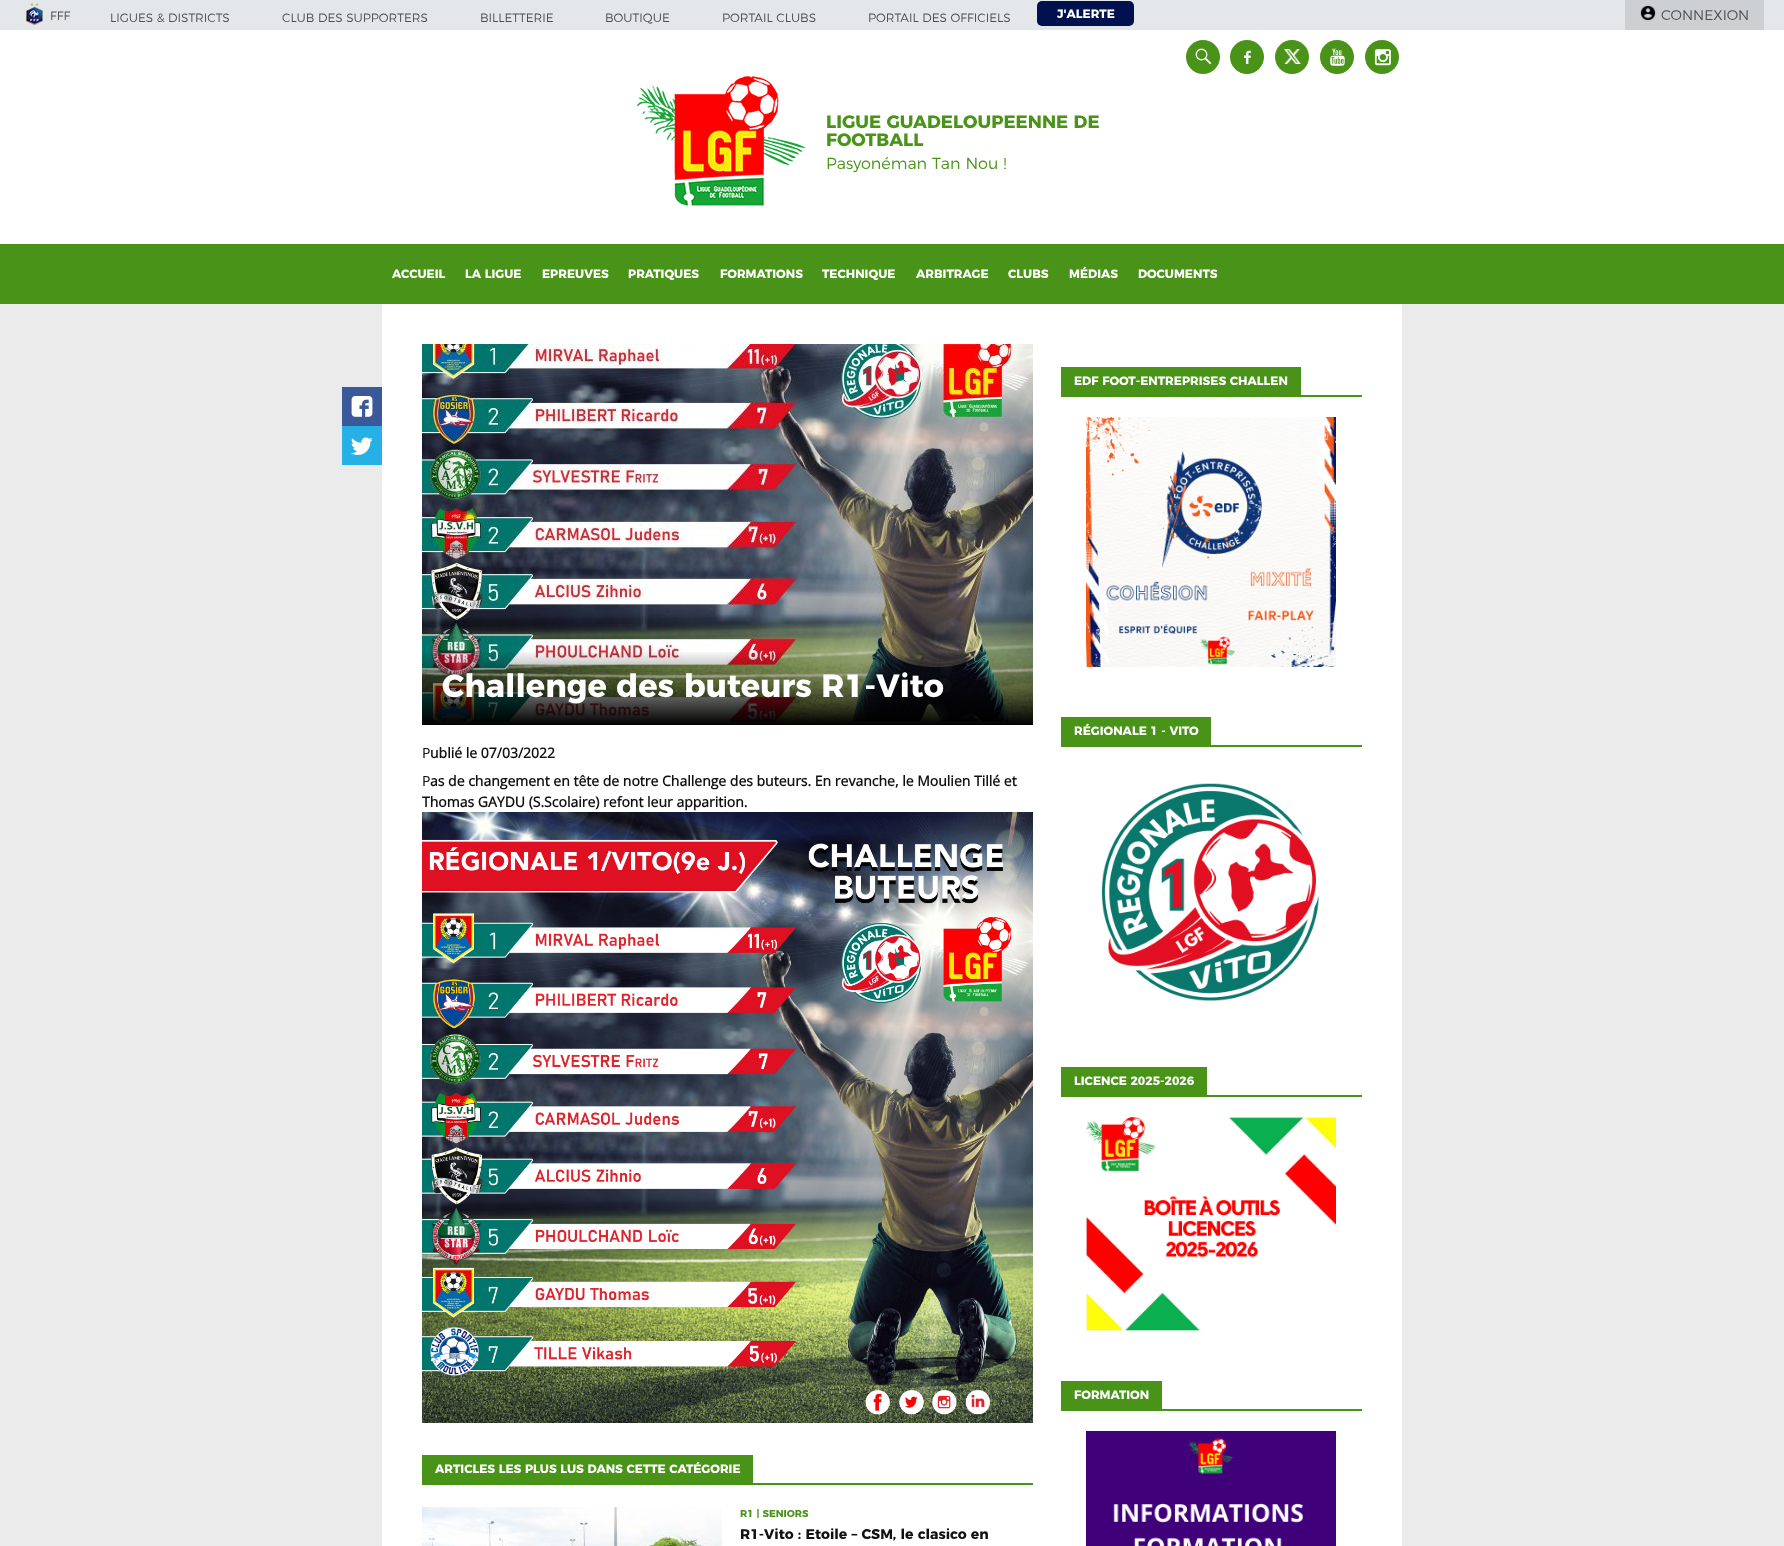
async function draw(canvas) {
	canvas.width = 1784;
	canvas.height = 1546;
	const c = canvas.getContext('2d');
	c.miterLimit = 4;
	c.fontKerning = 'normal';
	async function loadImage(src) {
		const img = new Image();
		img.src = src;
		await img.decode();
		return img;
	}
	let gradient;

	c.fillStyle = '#ebebeb';
	c.fillRect(0, 0, 1784, 1546);
	c.fillStyle = '#e3e7ea';
	c.fillRect(0, 0, 1784, 30);
	c.drawImage(await loadImage('img1.png'), 26, 3, 17, 22);
	c.font = '300 12px Montserrat';
	c.fillStyle = '#4e4e4e';
	for (const [text, x, y] of [
		['FFF', 50, 20],
		['LIGUES & DISTRICTS', 110, 22],
		['CLUB DES SUPPORTERS', 282, 22],
		['BILLETTERIE', 480, 22],
		['BOUTIQUE', 605, 22],
		['PORTAIL CLUBS', 722, 22],
		['PORTAIL DES OFFICIELS', 868, 22],
	]) {
		c.fillText(text, x, y);
	}
	c.fillStyle = '#01114e';
	c.beginPath();
	c.roundRect(1037, 1, 97, 25, 5);
	c.fill();
	c.font = 'bold 12px Montserrat';
	c.fillStyle = '#fff';
	c.fillText('J\'ALERTE', 1057, 18);
	c.fillStyle = '#ccd0d3';
	c.fillRect(1625, 0, 139, 30);
	c.drawImage(await loadImage('img2.png'), 1640, 5, 16, 16);
	c.font = '300 14px Montserrat';
	c.fillStyle = '#4e4e4e';
	c.fillText('CONNEXION', 1661, 20);
	c.fillStyle = '#fff';
	c.fillRect(0, 30, 1784, 214);
	c.fillStyle = '#4a9319';
	c.beginPath();
	c.arc(1203, 57, 17, 0, 2 * Math.PI);
	c.fill();
	c.drawImage(await loadImage('img3.png'), 1195, 48, 17, 17);
	c.beginPath();
	c.arc(1247, 57, 17, 0, 2 * Math.PI);
	c.fill();
	c.drawImage(await loadImage('img4.png'), 1244, 50, 7, 14);
	c.beginPath();
	c.arc(1292, 57, 17, 0, 2 * Math.PI);
	c.fill();
	c.drawImage(await loadImage('img5.png'), 1284, 49, 17, 15);
	c.beginPath();
	c.arc(1337, 57, 17, 0, 2 * Math.PI);
	c.fill();
	c.drawImage(await loadImage('img6.png'), 1330, 48, 15, 18);
	c.beginPath();
	c.arc(1382, 57, 17, 0, 2 * Math.PI);
	c.fill();
	c.drawImage(await loadImage('img7.png'), 1374, 49, 17, 17);
	c.drawImage(await loadImage('img8.png'), 637, 76, 169, 130);
	c.font = 'bold 18px Montserrat';
	c.fillText('LIGUE GUADELOUPEENNE DE', 826, 128);
	c.fillText('FOOTBALL', 826, 146);
	c.font = '300 16px Montserrat';
	c.fillText('Pasyonéman Tan Nou !', 826, 169);
	c.fillRect(0, 244, 1784, 60);
	c.font = 'bold 12px Montserrat';
	c.fillStyle = '#fff';
	for (const [text, x, y] of [
		['ACCUEIL', 392, 278],
		['LA LIGUE', 465, 278],
		['EPREUVES', 542, 278],
		['PRATIQUES', 628, 278],
		['FORMATIONS', 720, 278],
		['TECHNIQUE', 822, 278],
		['ARBITRAGE', 916, 278],
		['CLUBS', 1008, 278],
		['MÉDIAS', 1069, 278],
		['DOCUMENTS', 1138, 278],
	]) {
		c.fillText(text, x, y);
	}
	c.fillRect(382, 304, 1020, 1242);
	c.drawImage(await loadImage('img9.png'), 342, 387, 40, 39);
	c.drawImage(await loadImage('img10.png'), 342, 426, 40, 39);
	c.drawImage(await loadImage('img11.png'), 422, 344, 611, 378);
	gradient = c.createLinearGradient(728, 650, 728, 725);
	gradient.addColorStop(0, '#00000000');
	gradient.addColorStop(1, '#000');
	c.fillStyle = gradient;
	c.fillRect(422, 652, 611, 73);
	c.font = 'bold 32px Montserrat';
	c.fillStyle = '#fff';
	c.fillText('Challenge des buteurs R1-Vito', 442, 697);
	c.font = '14px Noto Sans';
	c.fillStyle = '#111';
	c.fillText('P', 422, 758);
	c.font = 'bold 14px Open Sans';
	c.fillText('ublié le 07/03/2022', 430, 758);
	c.font = '14px Noto Sans';
	c.fillText('P', 422, 786);
	c.font = 'bold 14px Open Sans';
	c.fillText('as de changement en tête de notre Challenge des buteurs. En revanche, le Moulien Tillé et', 430, 786);
	c.fillText('Thomas GAYDU (S.Scolaire) refont leur apparition.', 422, 807);
	c.drawImage(await loadImage('img12.png'), 422, 812, 611, 611);
	c.fillStyle = '#4a9319';
	c.fillRect(422, 1483, 611, 2);
	c.fillRect(422, 1455, 331, 28);
	c.font = 'bold 12px Montserrat';
	c.fillStyle = '#fff';
	c.fillText('ARTICLES LES PLUS LUS DANS CETTE CATÉGORIE', 435, 1473);
	c.drawImage(await loadImage('img13.png'), 422, 1507, 300, 39);
	c.font = 'bold 10px Montserrat';
	c.fillStyle = '#4a9319';
	c.fillText('R1 | SENIORS', 740, 1517);
	c.font = 'bold 14px Montserrat';
	c.fillStyle = '#111';
	c.fillText('R1-Vito : Etoile – CSM, le clasico en', 740, 1539);
	c.fillStyle = '#4a9319';
	c.fillRect(1061, 395, 301, 2);
	c.fillRect(1061, 367, 240, 28);
	c.font = 'bold 12px Montserrat';
	c.fillStyle = '#fff';
	c.fillText('EDF FOOT-ENTREPRISES CHALLEN', 1074, 385);
	c.drawImage(await loadImage('img14.png'), 1086, 417, 250, 250);
	c.fillStyle = '#4a9319';
	c.fillRect(1061, 745, 301, 2);
	c.fillRect(1061, 717, 150, 28);
	c.fillStyle = '#fff';
	c.fillText('RÉGIONALE 1 - VITO', 1074, 735);
	c.drawImage(await loadImage('img15.png'), 1101, 783, 219, 219);
	c.fillStyle = '#4a9319';
	c.fillRect(1061, 1095, 301, 2);
	c.fillRect(1061, 1067, 146, 28);
	c.fillStyle = '#fff';
	c.fillText('LICENCE 2025-2026', 1074, 1085);
	c.drawImage(await loadImage('img16.png'), 1086, 1117, 250, 214);
	c.fillStyle = '#4a9319';
	c.fillRect(1061, 1409, 301, 2);
	c.fillRect(1061, 1381, 101, 28);
	c.fillStyle = '#fff';
	c.fillText('FORMATION', 1074, 1399);
	c.drawImage(await loadImage('img17.png'), 1086, 1431, 250, 115);
}

draw(document.querySelector('canvas'));
